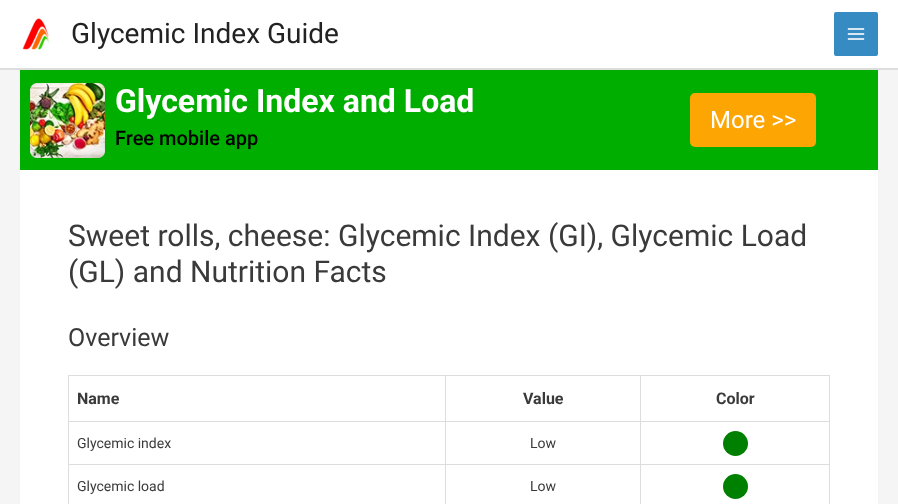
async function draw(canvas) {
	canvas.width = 898;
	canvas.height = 504;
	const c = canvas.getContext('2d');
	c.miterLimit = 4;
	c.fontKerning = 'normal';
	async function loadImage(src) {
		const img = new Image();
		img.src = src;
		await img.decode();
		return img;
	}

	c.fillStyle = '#f5f5f5';
	c.fillRect(0, 0, 898, 504);
	c.fillStyle = '#fff';
	c.fillRect(0, 0, 898, 68);
	c.fillStyle = '#ddd';
	c.fillRect(0, 68, 898, 2);
	c.drawImage(await loadImage('img1.png'), 22, 18, 27, 32);
	c.font = '28px Roboto';
	c.fillStyle = '#222';
	c.fillText('Glycemic Index Guide', 71, 43);
	c.fillStyle = '#378bc3';
	c.beginPath();
	c.roundRect(834, 12, 44, 44, 2);
	c.fill();
	c.drawImage(await loadImage('img2.png'), 847, 28, 18, 12);
	c.fillStyle = '#00ae00';
	c.fillRect(20, 70, 858, 100);
	c.drawImage(await loadImage('img3.png'), 30, 83, 75, 75);
	c.font = 'bold 32px Roboto';
	c.fillStyle = '#fff';
	c.fillText('Glycemic Index and Load', 115, 112);
	c.font = '500 20px Roboto';
	c.fillStyle = '#000';
	c.fillText('Free mobile app', 115, 145);
	c.fillStyle = '#fca503';
	c.beginPath();
	c.roundRect(690, 93, 126, 54, 5);
	c.fill();
	c.font = '24px Roboto';
	c.fillStyle = '#fff';
	c.fillText('More >>', 710, 128);
	c.fillRect(20, 170, 858, 334);
	c.font = '30px Roboto';
	c.fillStyle = '#3a3a3a';
	c.fillText('Sweet rolls, cheese: Glycemic Index (GI), Glycemic Load', 68, 246);
	c.fillText('(GL) and Nutrition Facts', 68, 282);
	c.font = '25px Roboto';
	c.fillText('Overview', 68, 346);
	for (const [x, y, w, h, color] of [
		[68, 375, 762, 1, '#ddd'],
		[68, 375, 1, 129, '#ddd'],
		[445, 376, 1, 128, '#ddd'],
		[69, 421, 377, 1, '#ddd'],
	]) {
		c.fillStyle = color;
		c.fillRect(x, y, w, h);
	}
	c.font = 'bold 16px Roboto';
	c.fillStyle = '#3a3a3a';
	c.fillText('Name', 77, 404);
	c.fillStyle = '#ddd';
	c.fillRect(640, 376, 1, 128);
	c.fillRect(446, 421, 195, 1);
	c.fillStyle = '#3a3a3a';
	c.fillText('Value', 523, 404);
	c.fillStyle = '#ddd';
	c.fillRect(829, 376, 1, 128);
	c.fillRect(641, 421, 189, 1);
	c.fillStyle = '#3a3a3a';
	c.fillText('Color', 716, 404);
	c.fillStyle = '#ddd';
	c.fillRect(69, 464, 761, 1);
	c.font = '14px Roboto';
	c.fillStyle = '#3a3a3a';
	c.fillText('Glycemic index', 77, 448);
	c.fillText('Low', 530, 448);
	c.fillStyle = '#008000';
	c.beginPath();
	c.arc(735.5, 443.5, 12.5, 0, 2 * Math.PI);
	c.fill();
	c.fillStyle = '#3a3a3a';
	c.fillText('Glycemic load', 77, 491);
	c.fillText('Low', 530, 491);
	c.fillStyle = '#008000';
	c.beginPath();
	c.arc(735.5, 486.5, 12.5, 0, 2 * Math.PI);
	c.fill();
}

draw(document.querySelector('canvas'));
